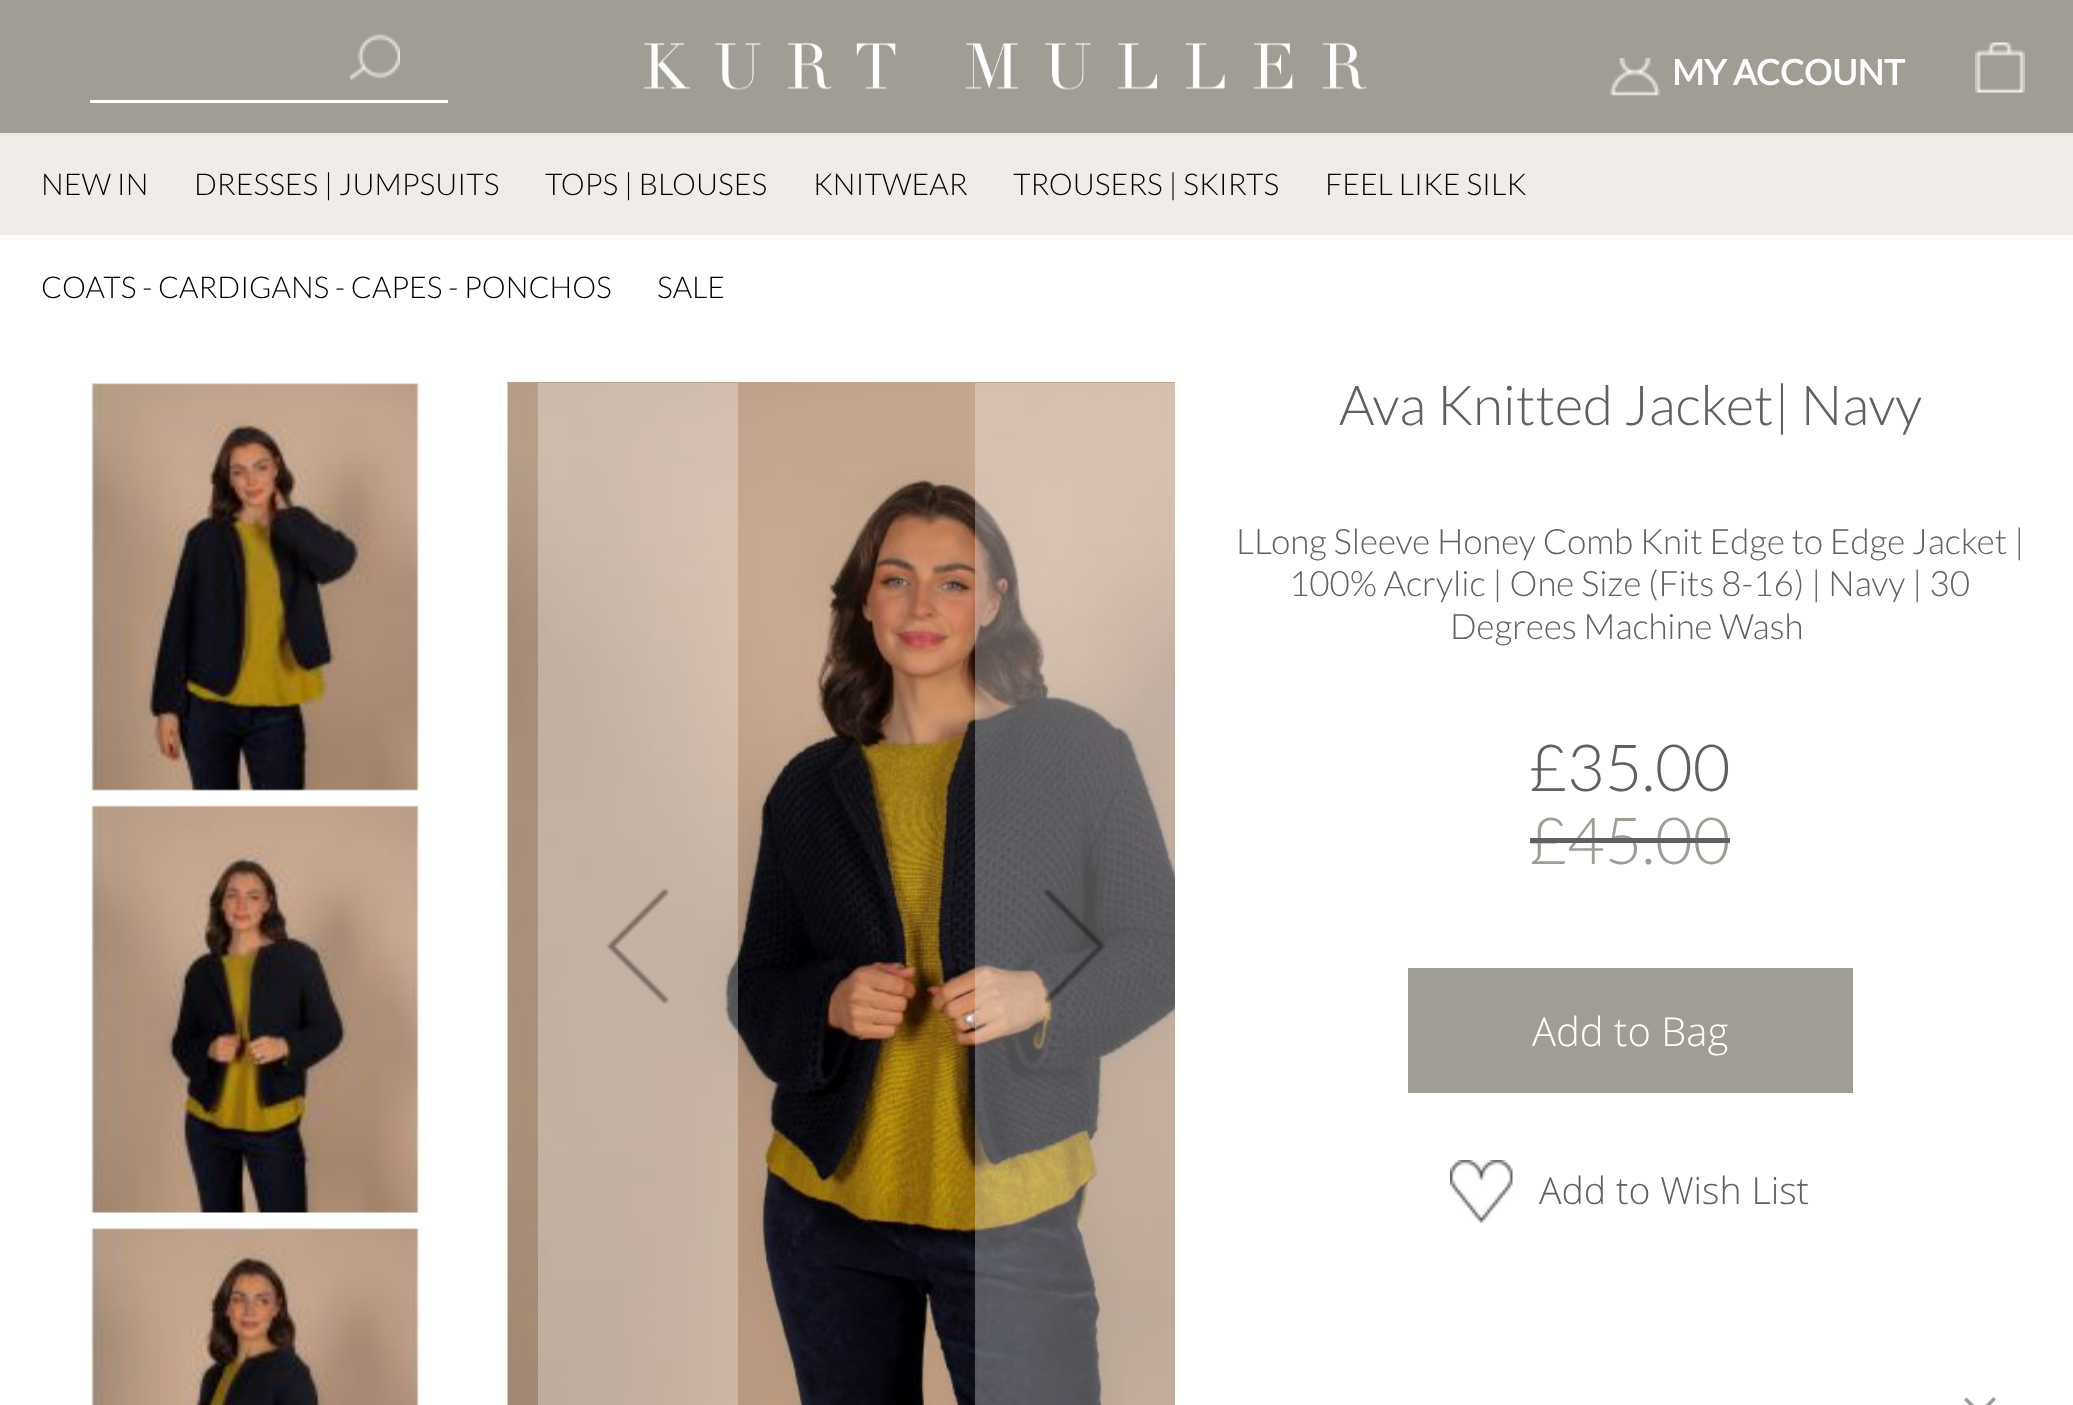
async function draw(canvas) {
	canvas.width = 2073;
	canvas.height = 1405;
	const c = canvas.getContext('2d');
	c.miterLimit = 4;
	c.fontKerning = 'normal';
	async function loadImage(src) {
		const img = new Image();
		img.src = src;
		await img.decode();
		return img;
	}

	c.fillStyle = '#fff';
	c.fillRect(0, 0, 2073, 1405);
	c.fillStyle = '#a09d95';
	c.fillRect(0, 0, 2073, 133);
	c.fillStyle = '#e8e8e8';
	c.fillRect(0, 133, 2073, 3);
	c.drawImage(await loadImage('img1.png'), 350, 34, 50, 47);
	c.fillStyle = '#fff';
	c.fillRect(90, 100, 358, 3);
	c.drawImage(await loadImage('img2.png'), 644, 42, 723, 48);
	c.drawImage(await loadImage('img3.png'), 1610, 58, 50, 38);
	c.font = 'bold 35px Lato';
	c.fillText('MY ACCOUNT', 1672, 85);
	c.drawImage(await loadImage('img4.png'), 1975, 42, 50, 51);
	c.fillStyle = '#f0ede8';
	c.fillRect(0, 136, 2073, 99);
	c.font = '300 30px Lato';
	c.fillStyle = '#000';
	for (const [text, x, y] of [
		['NEW IN', 41, 195],
		['DRESSES | JUMPSUITS', 194, 195],
		['TOPS | BLOUSES', 545, 195],
		['KNITWEAR', 813, 195],
		['TROUSERS | SKIRTS', 1013, 195],
		['FEEL LIKE SILK', 1325, 195],
		['COATS - CARDIGANS - CAPES - PONCHOS', 41, 298],
		['SALE', 657, 298],
	]) {
		c.fillText(text, x, y);
	}
	c.drawImage(await loadImage('img5.png'), 89, 383, 340, 408);
	c.drawImage(await loadImage('img6.png'), 89, 805, 341, 408);
	c.drawImage(await loadImage('img7.png'), 88, 1228, 342, 177);
	c.drawImage(await loadImage('img8.png'), 499, 382, 676, 1023);
	c.fillStyle = '#ffffff4d';
	c.fillRect(538, 383, 200, 1022);
	c.drawImage(await loadImage('img9.png'), 606, 888, 63, 116);
	c.fillRect(975, 383, 200, 1022);
	c.drawImage(await loadImage('img10.png'), 1043, 889, 63, 115);
	c.font = '300 55px Lato';
	c.fillStyle = '#606060';
	c.fillText('Ava Knitted Jacket| Navy', 1339, 425);
	c.font = '300 35px Lato';
	for (const [text, x, y] of [
		['LLong Sleeve Honey Comb Knit Edge to Edge Jacket |', 1236, 554],
		['100% Acrylic | One Size (Fits 8-16) | Navy | 30', 1289, 596],
		['Degrees Machine Wash', 1450, 639],
	]) {
		c.fillText(text, x, y);
	}
	c.font = '300 65px Lato';
	c.fillText('£35.00', 1529, 791);
	c.fillStyle = '#a09d95';
	c.fillText('£45.00', 1529, 864);
	c.fillStyle = '#606060';
	c.fillRect(1530, 838, 200, 5);
	c.fillStyle = '#a09d95';
	c.fillRect(1408, 968, 445, 125);
	c.font = '300 40px Open Sans';
	c.fillStyle = '#fff';
	c.fillText('Add to Bag', 1532, 1046);
	c.drawImage(await loadImage('img11.png'), 1450, 1160, 63, 63);
	c.font = '300 37.5px Open Sans';
	c.fillStyle = '#606060';
	c.fillText('Add to Wish List', 1539, 1204);
	c.fillStyle = '#a09d95';
	c.beginPath();
	c.moveTo(1980, 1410.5);
	c.lineTo(1966.5, 1397.5);
	c.lineTo(1964, 1400);
	c.lineTo(1980, 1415.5);
	c.lineTo(1996, 1399.5);
	c.lineTo(1993.5, 1397);
	c.closePath();
	c.fill();
}

draw(document.querySelector('canvas'));
